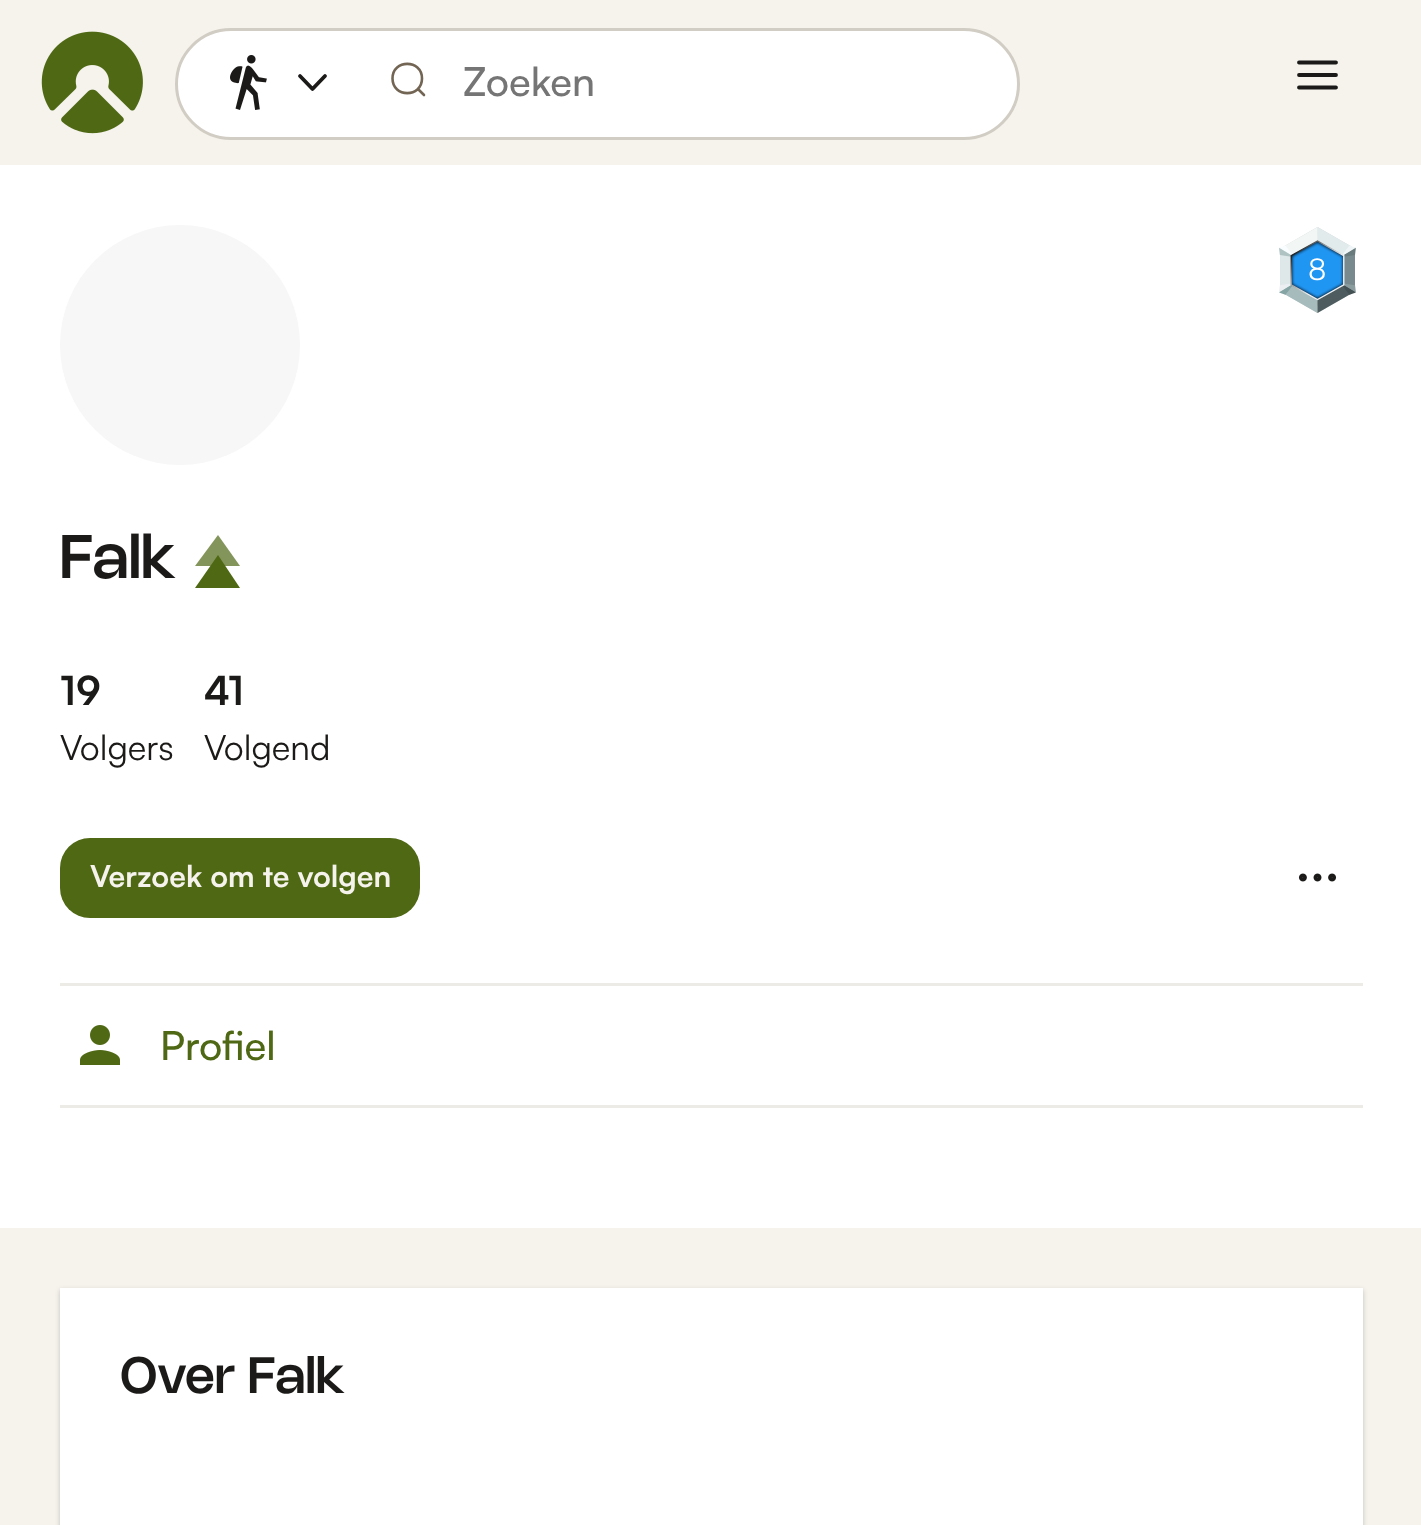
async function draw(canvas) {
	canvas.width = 1421;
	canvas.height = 1525;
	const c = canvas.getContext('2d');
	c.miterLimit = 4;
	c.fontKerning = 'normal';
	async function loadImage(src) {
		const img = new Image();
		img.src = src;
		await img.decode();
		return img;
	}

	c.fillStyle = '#f5f3ec';
	c.fillRect(0, 0, 1421, 1525);
	c.drawImage(await loadImage('img1.png'), 41, 31, 102, 103);
	c.fillStyle = '#fff';
	c.beginPath();
	c.roundRect(176.5, 29.5, 842, 109, 54.5);
	c.fill();
	c.strokeStyle = '#d1cdc4';
	c.lineWidth = 3;
	c.stroke();
	c.drawImage(await loadImage('img2.png'), 230, 55, 37, 55);
	c.beginPath();
	c.moveTo(300, 76);
	c.lineTo(312.5, 89);
	c.lineTo(325, 76);
	c.strokeStyle = '#1c1a18';
	c.lineWidth = 3.8;
	c.lineCap = 'round';
	c.lineJoin = 'round';
	c.stroke();
	c.beginPath();
	c.moveTo(424, 95);
	c.lineTo(418, 89);
	c.moveTo(422, 78.5);
	c.bezierCurveTo(422, 98, 392.5, 98, 392.5, 78.5);
	c.bezierCurveTo(392.5, 59, 422, 59, 422, 78.5);
	c.closePath();
	c.strokeStyle = '#736554';
	c.lineWidth = 2.6;
	c.stroke();
	c.font = '500 40px Satoshi';
	c.fillStyle = '#757575';
	c.fillText('Zoeken', 463, 96);
	c.beginPath();
	c.moveTo(1299, 75);
	c.lineTo(1336, 75);
	c.moveTo(1299, 62.5);
	c.lineTo(1336, 62.5);
	c.moveTo(1299, 87.5);
	c.lineTo(1336, 87.5);
	c.strokeStyle = '#1c1a18';
	c.lineWidth = 3.8;
	c.stroke();
	c.fillStyle = '#fff';
	c.fillRect(0, 165, 1421, 1063);
	c.fillStyle = '#f7f7f7';
	c.beginPath();
	c.arc(180, 345, 120, 0, 2 * Math.PI);
	c.fill();
	c.drawImage(await loadImage('img3.png'), 1279, 227, 77, 86);
	c.font = '30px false';
	c.fillStyle = '#fff';
	c.fillText('8', 1308, 280);
	c.letterSpacing = '0.5px';
	c.font = '500 60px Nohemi';
	c.fillStyle = '#1c1a18';
	c.fillText('Falk', 60, 578);
	c.fillStyle = '#84955b';
	c.beginPath();
	c.moveTo(195, 566);
	c.lineTo(218, 535);
	c.lineTo(240, 566);
	c.closePath();
	c.fill('evenodd');
	c.fillStyle = '#4f6814';
	c.beginPath();
	c.moveTo(195, 588);
	c.lineTo(218, 555);
	c.lineTo(240, 588);
	c.closePath();
	c.fill('evenodd');
	c.letterSpacing = '0px';
	c.font = 'bold 40px false';
	c.fillStyle = '#1c1a18';
	c.fillText('19', 60, 705);
	c.font = '35px false';
	c.fillText('Volgers', 60, 760);
	c.font = 'bold 40px false';
	c.fillText('41', 204, 705);
	c.font = '35px false';
	c.fillText('Volgend', 204, 760);
	c.fillStyle = '#4f6814';
	c.beginPath();
	c.roundRect(60, 838, 360, 80, 30);
	c.fill();
	c.font = 'bold 30px false';
	c.fillStyle = '#f5f3ec';
	c.fillText('Verzoek om te volgen', 90, 887);
	c.drawImage(await loadImage('img4.png'), 1298, 873, 39, 9);
	c.fillStyle = '#edebe5';
	c.fillRect(60, 983, 1303, 3);
	c.drawImage(await loadImage('img5.png'), 80, 1025, 40, 40);
	c.font = '500 40px Satoshi';
	c.fillStyle = '#4f6814';
	c.fillText('Profiel', 160, 1060);
	c.fillStyle = '#edebe5';
	c.fillRect(60, 1105, 1303, 3);
	c.fillStyle = '#00000033';
	c.filter = 'blur(2.5px)';
	c.beginPath();
	c.rect(60, 1290, 1303, 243);
	c.fill();
	c.filter = 'none';
	c.fillStyle = '#fff';
	c.fillRect(60, 1288, 1303, 237);
	c.letterSpacing = '0.5px';
	c.font = '500 50px Nohemi';
	c.fillStyle = '#1c1a18';
	c.fillText('Over Falk', 120, 1393);
}

draw(document.querySelector('canvas'));
